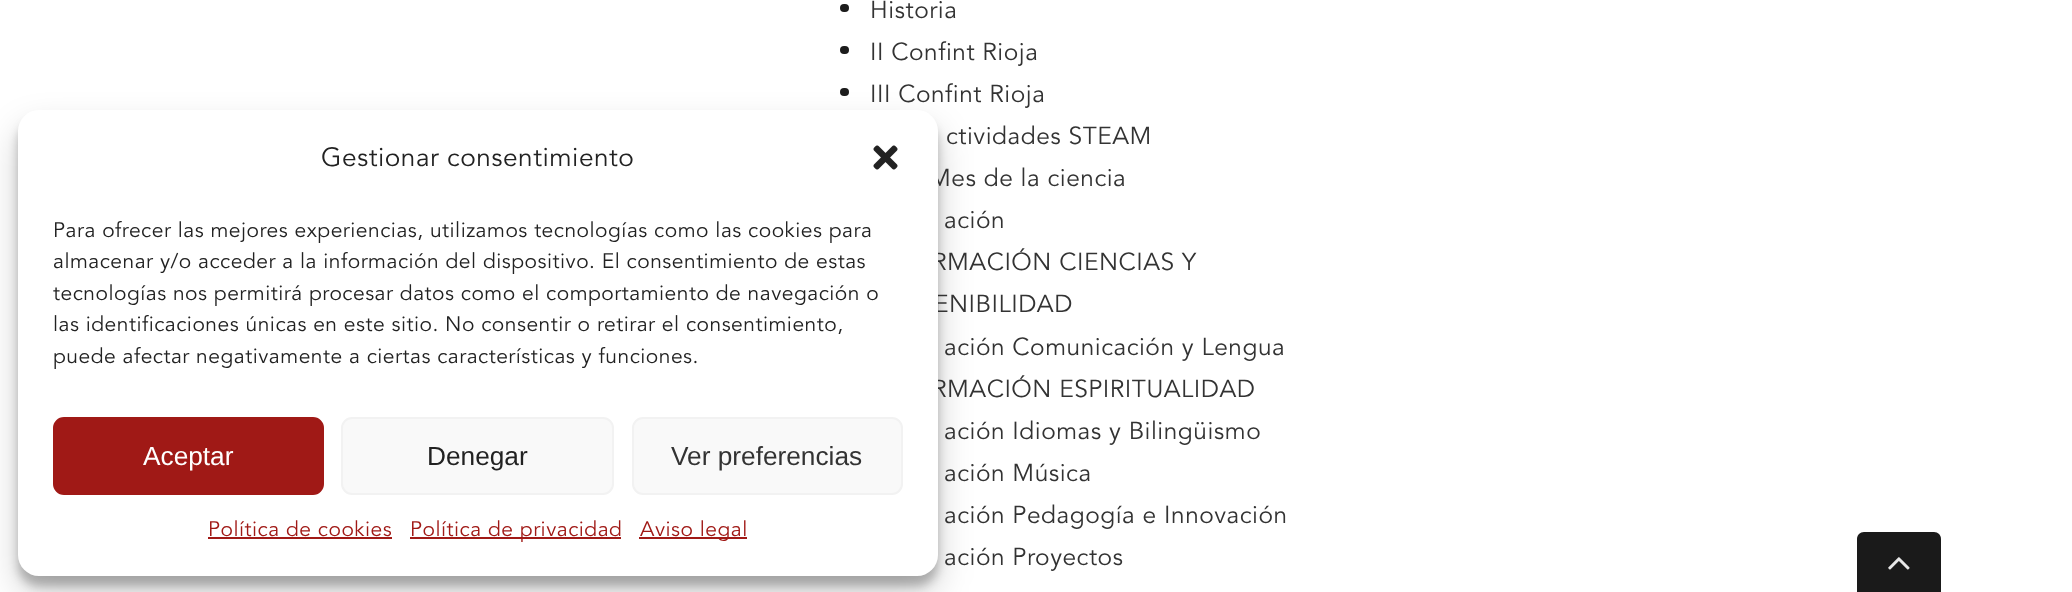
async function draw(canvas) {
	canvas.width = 2072;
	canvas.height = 592;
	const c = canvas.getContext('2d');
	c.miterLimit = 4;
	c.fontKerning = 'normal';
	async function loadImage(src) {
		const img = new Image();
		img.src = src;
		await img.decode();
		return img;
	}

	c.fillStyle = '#fff';
	c.fillRect(0, 0, 2072, 592);
	c.fillStyle = '#0000003b';
	c.filter = 'blur(5px)';
	c.beginPath();
	c.roundRect(18, 121, 920, 465, 21);
	c.fill();
	c.filter = 'none';
	c.fillStyle = '#1c1c1c';
	c.beginPath();
	c.roundRect(840, 88, 9, 8, 4);
	c.fill();
	c.fillStyle = '#00000030';
	c.filter = 'blur(17.5px)';
	c.beginPath();
	c.roundRect(18, 128, 920, 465, 21);
	c.fill();
	c.filter = 'none';
	c.letterSpacing = '0.5px';
	c.font = '24.5px Avenir';
	c.fillStyle = '#333';
	for (const [text, x, y] of [
		['Mes de la ciencia', 929, 186],
		['RMACIÓN CIENCIAS Y', 932, 270],
		['ENIBILIDAD', 934, 312],
		['RMACIÓN ESPIRITUALIDAD', 932, 397],
	]) {
		c.fillText(text, x, y);
	}
	c.fillStyle = '#fff';
	c.beginPath();
	c.roundRect(18, 110, 920, 466, 21);
	c.fill();
	c.font = '26.25px Avenir';
	c.fillStyle = '#222';
	c.fillText('Gestionar consentimiento', 321, 166);
	c.drawImage(await loadImage('img1.png'), 873, 145, 25, 25);
	c.font = '21px Avenir';
	for (const [text, x, y] of [
		['Para ofrecer las mejores experiencias, utilizamos tecnologías como las cookies para', 53, 237],
		['almacenar y/o acceder a la información del dispositivo. El consentimiento de estas', 53, 268],
		['tecnologías nos permitirá procesar datos como el comportamiento de navegación o', 53, 300],
		['las identificaciones únicas en este sitio. No consentir o retirar el consentimiento,', 53, 331],
		['puede afectar negativamente a ciertas características y funciones.', 53, 363],
	]) {
		c.fillText(text, x, y);
	}
	c.fillStyle = '#a01916';
	c.beginPath();
	c.roundRect(54, 418, 269, 76, 10);
	c.fill();
	c.strokeStyle = '#a01916';
	c.lineWidth = 2;
	c.stroke();
	c.letterSpacing = '0px';
	c.font = '26.25px Liberation Sans';
	c.fillStyle = '#fff';
	c.fillText('Aceptar', 143, 465);
	c.fillStyle = '#f9f9f9';
	c.beginPath();
	c.roundRect(342, 418, 271, 76, 10);
	c.fill();
	c.strokeStyle = '#f2f2f2';
	c.stroke();
	c.fillStyle = '#222';
	c.fillText('Denegar', 427, 465);
	c.fillStyle = '#f9f9f9';
	c.beginPath();
	c.roundRect(633, 418, 269, 76, 10);
	c.fill();
	c.stroke();
	c.fillStyle = '#333';
	c.fillText('Ver preferencias', 671, 465);
	c.letterSpacing = '0.5px';
	c.font = '21px Avenir';
	c.fillStyle = '#a01916';
	c.fillText('Política de cookies', 208, 536);
	c.fillRect(208, 537, 184, 2);
	c.fillRect(410, 537, 211, 2);
	c.fillText('Política de privacidad', 410, 536);
	c.fillRect(639, 537, 108, 2);
	c.fillText('Aviso legal', 640, 536);
	c.fillStyle = '#1c1c1c';
	c.beginPath();
	c.roundRect(840, 4, 9, 8, 4);
	c.fill();
	c.font = '24.5px Avenir';
	c.fillStyle = '#333';
	c.fillText('Historia', 870, 18);
	c.fillStyle = '#1c1c1c';
	c.beginPath();
	c.roundRect(840, 46, 9, 8, 4);
	c.fill();
	c.fillStyle = '#333';
	for (const [text, x, y] of [
		['II Confint Rioja', 870, 60],
		['III Confint Rioja', 870, 102],
		['ctividades STEAM', 946, 144],
		['ación', 944, 228],
		['ación Comunicación y Lengua', 944, 355],
		['ación Idiomas y Bilingüismo', 944, 439],
		['ación Música', 944, 481],
		['ación Pedagogía e Innovación', 944, 523],
		['ación Proyectos', 944, 565],
	]) {
		c.fillText(text, x, y);
	}
	c.fillStyle = '#1a1a1a';
	c.beginPath();
	c.moveTo(1864, 532);
	c.lineTo(1934, 532);
	c.bezierCurveTo(1938, 532, 1941, 535, 1941, 539);
	c.lineTo(1941, 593);
	c.lineTo(1857, 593);
	c.lineTo(1857, 539);
	c.bezierCurveTo(1857, 535, 1860, 532, 1864, 532);
	c.closePath();
	c.fill();
	c.drawImage(await loadImage('img2.png'), 1888, 557, 22, 13);
}

draw(document.querySelector('canvas'));
